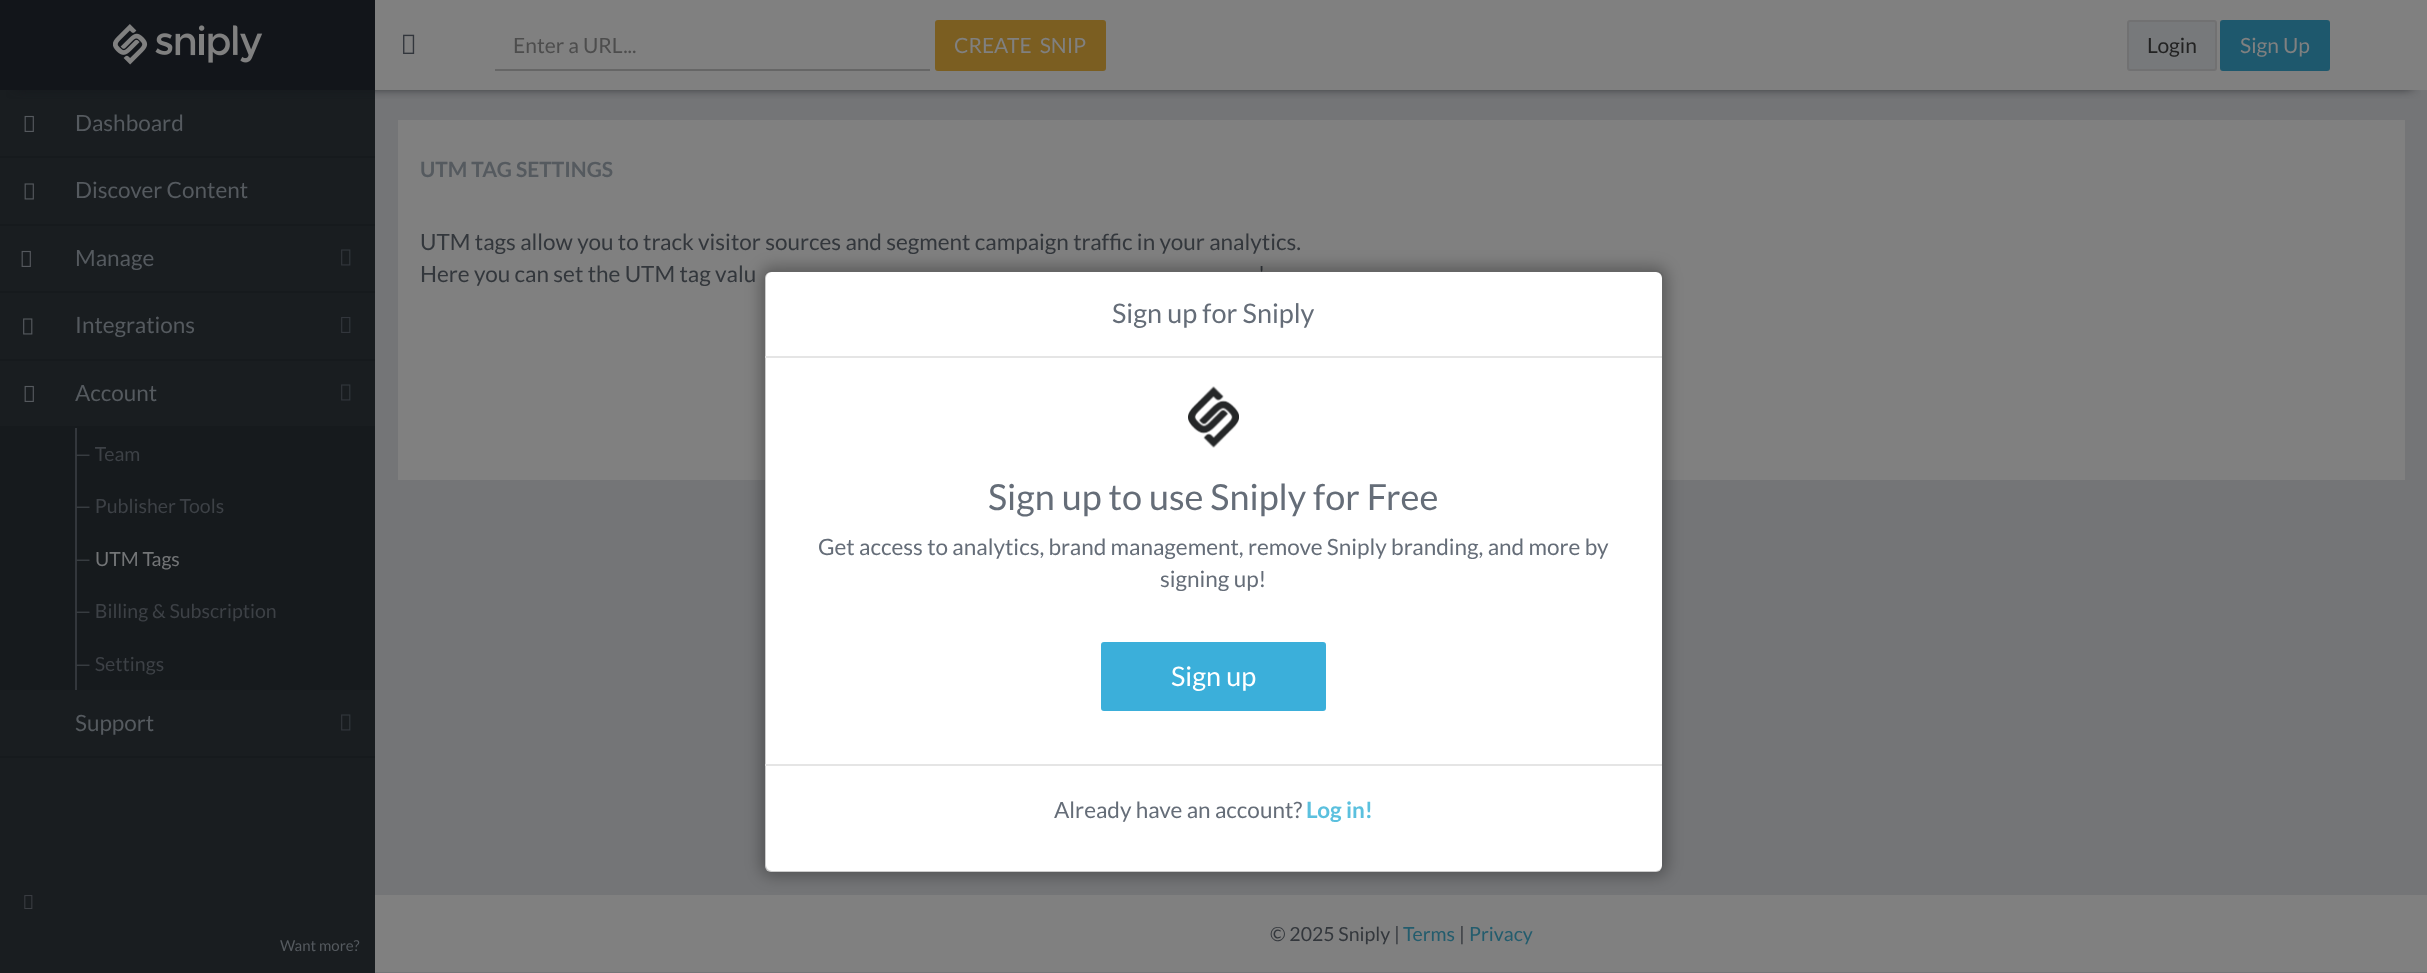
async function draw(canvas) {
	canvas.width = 2427;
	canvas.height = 973;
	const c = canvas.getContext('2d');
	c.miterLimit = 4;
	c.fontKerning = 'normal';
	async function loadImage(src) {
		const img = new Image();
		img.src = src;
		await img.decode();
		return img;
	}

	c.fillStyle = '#808080';
	c.fillRect(0, 0, 2427, 973);
	c.fillStyle = '#747577';
	c.fillRect(375, 90, 2052, 883);
	c.fillStyle = '#191d20';
	c.fillRect(0, 90, 375, 883);
	c.save();
	c.beginPath();
	c.rect(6, 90, 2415, 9);
	c.clip();
	c.fillStyle = '#12151a';
	c.filter = 'blur(6px)';
	c.beginPath();
	c.rect(15, 27, 2397, 60);
	c.fill();
	c.filter = 'none';
	c.restore();
	c.fillStyle = '#12151a';
	c.fillRect(0, 0, 375, 90);
	c.drawImage(await loadImage('img1.png'), 113, 24, 150, 41);
	c.drawImage(await loadImage('img2.png'), 403, 34, 12, 20);
	c.fillStyle = '#666';
	c.fillRect(495, 69, 435, 2);
	c.font = '21px Lato';
	c.fillStyle = '#4d4d4d';
	c.fillText('Enter a URL...', 513, 53);
	c.fillStyle = '#7b5e21';
	c.beginPath();
	c.roundRect(936, 21, 169, 49, 2);
	c.fill();
	c.strokeStyle = '#7b5e21';
	c.lineWidth = 2;
	c.stroke();
	c.fillStyle = '#808080';
	c.fillText('CREATE  SNIP', 954, 53);
	c.fillStyle = '#77797b';
	c.beginPath();
	c.roundRect(2128, 21, 88, 49, 2);
	c.fill();
	c.strokeStyle = '#717172';
	c.stroke();
	c.fillStyle = '#222';
	c.fillText('Login', 2147, 53);
	c.fillStyle = '#1e586d';
	c.beginPath();
	c.roundRect(2221, 21, 108, 49, 2);
	c.fill();
	c.strokeStyle = '#1e586d';
	c.stroke();
	c.fillStyle = '#808080';
	c.fillText('Sign Up', 2240, 53);
	c.fillStyle = '#161a1d';
	c.fillRect(0, 156, 375, 2);
	c.drawImage(await loadImage('img3.png'), 24, 115, 10, 17);
	c.font = '22.5px Lato';
	c.fillStyle = '#555a5f';
	c.fillText('Dashboard', 75, 131);
	c.fillStyle = '#161a1d';
	c.fillRect(0, 224, 375, 2);
	c.drawImage(await loadImage('img4.png'), 24, 183, 10, 17);
	c.fillStyle = '#555a5f';
	c.fillText('Discover Content', 75, 198);
	c.fillStyle = '#161a1d';
	c.fillRect(0, 291, 375, 2);
	c.drawImage(await loadImage('img3.png'), 21, 250, 10, 17);
	c.fillStyle = '#555a5f';
	c.fillText('Manage', 75, 266);
	c.drawImage(await loadImage('img5.png'), 341, 249, 10, 17);
	c.fillStyle = '#161a1d';
	c.fillRect(0, 359, 375, 2);
	c.drawImage(await loadImage('img6.png'), 23, 318, 10, 17);
	c.fillStyle = '#555a5f';
	c.fillText('Integrations', 75, 333);
	c.drawImage(await loadImage('img7.png'), 341, 317, 10, 16);
	c.drawImage(await loadImage('img3.png'), 24, 385, 10, 17);
	c.fillText('Account', 75, 401);
	c.drawImage(await loadImage('img5.png'), 341, 384, 10, 17);
	c.fillStyle = '#161a1d';
	c.fillRect(0, 426, 375, 264);
	c.fillStyle = '#33373c';
	c.fillRect(75, 428, 2, 262);
	c.font = '19.5px Lato';
	c.fillStyle = '#3d4146';
	for (const [text, x, y] of [
		['— Team', 75, 461],
		['— Publisher Tools', 75, 513],
		['—', 75, 566],
	]) {
		c.fillText(text, x, y);
	}
	c.fillStyle = '#737577';
	c.fillText('UTM Tags', 95, 566);
	c.fillStyle = '#3d4146';
	c.fillText('— Billing & Subscription', 75, 618);
	c.fillText('— Settings', 75, 671);
	c.fillStyle = '#161a1d';
	c.fillRect(0, 756, 375, 2);
	c.font = '22.5px Lato';
	c.fillStyle = '#555a5f';
	c.fillText('Support', 75, 731);
	c.drawImage(await loadImage('img5.png'), 341, 714, 10, 17);
	c.drawImage(await loadImage('img8.png'), 24, 895, 9, 14);
	c.font = '15px Lato';
	c.fillText('Want more?', 280, 951);
	c.fillStyle = '#808080';
	c.fillRect(398, 120, 2007, 360);
	c.font = 'bold 21px Lato';
	c.fillStyle = '#555a5f';
	c.fillText('UTM TAG SETTINGS', 420, 177);
	c.font = '22.5px Lato';
	c.fillStyle = '#33373c';
	for (const [text, x, y] of [
		['UTM tags allow you to track visitor sources and segment campaign traffic in your analytics.', 420, 250],
		['Here you can set the UTM tag valu', 420, 282],
		['\'', 1259, 282],
	]) {
		c.fillText(text, x, y);
	}
	c.fillStyle = '#808080';
	c.fillRect(375, 895, 2052, 77);
	c.font = '19.5px Lato';
	c.fillStyle = '#33373c';
	c.fillText('© 2025 Sniply |', 1270, 941);
	c.fillStyle = '#235c6d';
	c.fillText('Terms', 1403, 941);
	c.fillStyle = '#33373c';
	c.fillText('|', 1459, 941);
	c.fillStyle = '#235c6d';
	c.fillText('Privacy', 1469, 941);
	c.save();
	c.beginPath();
	c.moveTo(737, 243);
	c.lineTo(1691, 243);
	c.lineTo(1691, 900);
	c.lineTo(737, 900);
	c.closePath();
	c.moveTo(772, 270);
	c.lineTo(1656, 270);
	c.bezierCurveTo(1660.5, 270, 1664, 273.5, 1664, 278);
	c.lineTo(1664, 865);
	c.bezierCurveTo(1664, 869.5, 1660.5, 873, 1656, 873);
	c.lineTo(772, 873);
	c.bezierCurveTo(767.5, 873, 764, 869.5, 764, 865);
	c.lineTo(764, 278);
	c.bezierCurveTo(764, 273.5, 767.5, 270, 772, 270);
	c.closePath();
	c.clip('evenodd');
	c.fillStyle = '#0000004d';
	c.filter = 'blur(7.5px)';
	c.beginPath();
	c.roundRect(761, 267, 906, 609, 11);
	c.fill();
	c.filter = 'none';
	c.restore();
	c.fillStyle = '#fff';
	c.beginPath();
	c.roundRect(765, 272, 897, 600, 6);
	c.fill();
	c.beginPath();
	c.roundRect(765, 271, 898, 601, 7);
	c.strokeStyle = '#00000033';
	c.stroke();
	c.fillStyle = '#e5e5e5';
	c.fillRect(765, 356, 897, 2);
	c.font = '27px Lato';
	c.fillStyle = '#656d78';
	c.fillText('Sign up for Sniply', 1112, 323);
	c.drawImage(await loadImage('img9.png'), 1188, 386, 51, 62);
	c.font = '36px Lato';
	c.fillText('Sign up to use Sniply for Free', 988, 510);
	c.font = '22.5px Lato';
	c.fillText('Get access to analytics, brand management, remove Sniply branding, and more by', 818, 555);
	c.fillText('signing up!', 1160, 587);
	c.fillStyle = '#3bafda';
	c.beginPath();
	c.roundRect(1102, 643, 223, 67, 2);
	c.fill();
	c.strokeStyle = '#3bafda';
	c.stroke();
	c.font = '27px Lato';
	c.fillStyle = '#fff';
	c.fillText('Sign up', 1171, 686);
	c.fillStyle = '#e5e5e5';
	c.fillRect(765, 764, 897, 2);
	c.font = '22.5px Lato';
	c.fillStyle = '#656d78';
	c.fillText('Already have an account?', 1054, 818);
	c.font = 'bold 22.5px Lato';
	c.fillStyle = '#5bc0de';
	c.fillText('Log in!', 1306, 818);
}

draw(document.querySelector('canvas'));
